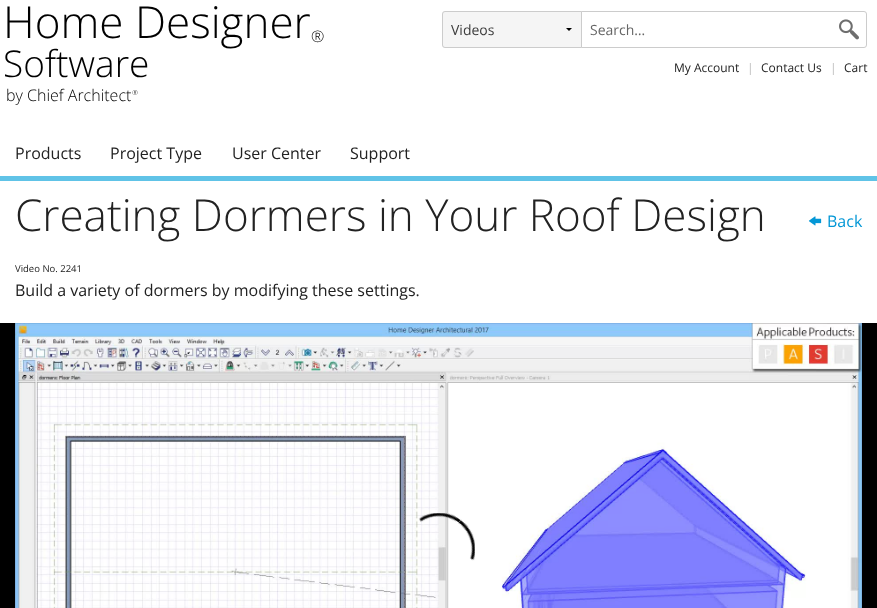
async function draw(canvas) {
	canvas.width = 877;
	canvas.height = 608;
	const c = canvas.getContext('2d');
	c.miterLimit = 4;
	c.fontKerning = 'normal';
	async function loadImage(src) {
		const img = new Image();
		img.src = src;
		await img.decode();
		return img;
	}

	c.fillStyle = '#fff';
	c.fillRect(0, 0, 877, 608);
	c.fillStyle = '#60c3e7';
	c.fillRect(0, 176, 877, 5);
	c.font = '300 44px Open Sans';
	c.fillStyle = '#000';
	c.fillText('Home Designer', 3, 38);
	c.font = '300 16px Open Sans';
	c.fillText('®', 311, 42);
	c.font = '300 37px Open Sans';
	c.fillText('Software', 3, 77);
	c.font = '300 16px Open Sans';
	c.fillText('by Chief Architect', 6, 101);
	c.font = '300 7px Open Sans';
	c.fillText('®', 132, 95);
	c.fillStyle = '#f5f5f5';
	c.beginPath();
	c.roundRect(442, 11, 140, 37, [3, 0, 0, 3]);
	c.fill();
	c.fillStyle = '#000';
	c.beginPath();
	c.moveTo(572, 28);
	c.lineTo(569, 31);
	c.lineTo(566, 28);
	c.closePath();
	c.fill();
	c.beginPath();
	c.roundRect(442.5, 11.5, 139, 36, [2.5, 0, 0, 2.5]);
	c.strokeStyle = '#ccc';
	c.stroke();
	c.font = '14px Open Sans';
	c.fillStyle = '#3d3d3d';
	c.fillText('Videos', 451, 35);
	c.fillStyle = '#fff';
	c.beginPath();
	c.roundRect(581.5, 11.5, 285, 36, [0, 2.5, 2.5, 0]);
	c.fill();
	c.stroke();
	c.fillStyle = '#666';
	c.fillText('Search…', 590, 35);
	c.drawImage(await loadImage('img1.png'), 839, 19, 20, 21);
	c.font = '12px Open Sans';
	c.fillStyle = '#222';
	c.fillText('My Account', 674, 72);
	c.fillStyle = '#bcbcbc';
	c.fillText('|', 747, 72);
	c.fillStyle = '#222';
	c.fillText('Contact Us', 761, 72);
	c.fillStyle = '#bcbcbc';
	c.fillText('|', 830, 72);
	c.fillStyle = '#222';
	c.fillText('Cart', 844, 72);
	c.font = '16px Open Sans';
	for (const [text, x, y] of [
		['Products', 15, 159],
		['Project Type', 110, 159],
		['User Center', 232, 159],
		['Support', 350, 159],
	]) {
		c.fillText(text, x, y);
	}
	c.font = '300 44px Open Sans';
	c.fillText('Creating Dormers in Your Roof Design', 15, 231);
	c.drawImage(await loadImage('img2.png'), 808, 216, 14, 10);
	c.font = '16px Open Sans';
	c.fillStyle = '#0397d6';
	c.fillText('Back', 827, 227);
	c.font = '9.5px Open Sans';
	c.fillStyle = '#222';
	c.fillText('Video No. 2241', 15, 272);
	c.font = '16px Open Sans';
	c.fillText('Build a variety of dormers by modifying these settings.', 15, 296);
	c.fillStyle = '#000';
	c.fillRect(0, 323, 877, 285);
	c.drawImage(await loadImage('img3.png'), 15, 323, 847, 285);
}

draw(document.querySelector('canvas'));
